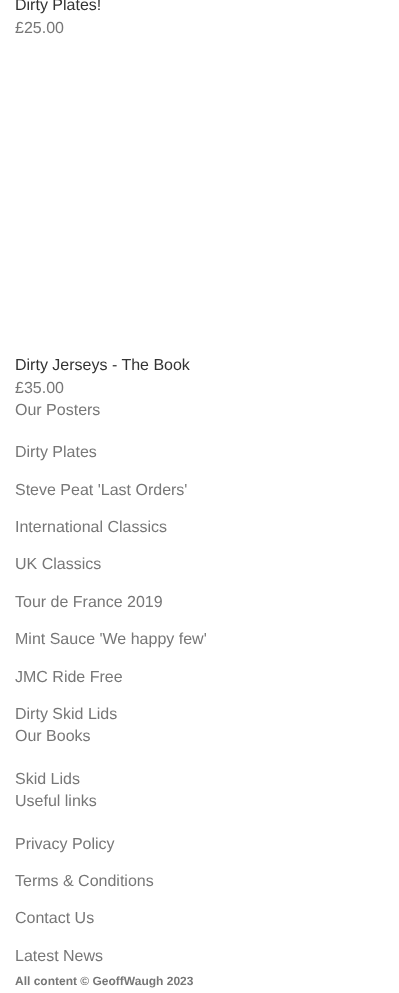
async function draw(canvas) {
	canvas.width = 399;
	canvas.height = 993;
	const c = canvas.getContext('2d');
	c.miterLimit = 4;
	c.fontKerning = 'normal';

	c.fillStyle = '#fff';
	c.fillRect(0, 0, 399, 993);
	c.font = '16px Liberation Sans';
	c.fillStyle = '#333';
	c.fillText('Dirty Plates!', 15, 10);
	c.fillStyle = '#777';
	c.fillText('£25.00', 15, 33);
	c.fillStyle = '#333';
	c.fillText('Dirty Jerseys - The Book', 15, 370);
	c.fillStyle = '#777';
	for (const [text, x, y] of [
		['£35.00', 15, 393],
		['Our Posters', 15, 415],
		['Dirty Plates', 15, 457],
		['Steve Peat \'Last Orders\'', 15, 495],
		['International Classics', 15, 532],
		['UK Classics', 15, 569],
		['Tour de France 2019', 15, 607],
		['Mint Sauce \'We happy few\'', 15, 644],
		['JMC Ride Free', 15, 682],
		['Dirty Skid Lids', 15, 719],
		['Our Books', 15, 741],
		['Skid Lids', 15, 784],
		['Useful links', 15, 806],
		['Privacy Policy', 15, 849],
		['Terms & Conditions', 15, 886],
		['Contact Us', 15, 923],
		['Latest News', 15, 961],
	]) {
		c.fillText(text, x, y);
	}
	c.font = 'bold 12px Liberation Sans';
	c.fillText('All content © GeoffWaugh 2023', 15, 985);
}

draw(document.querySelector('canvas'));
